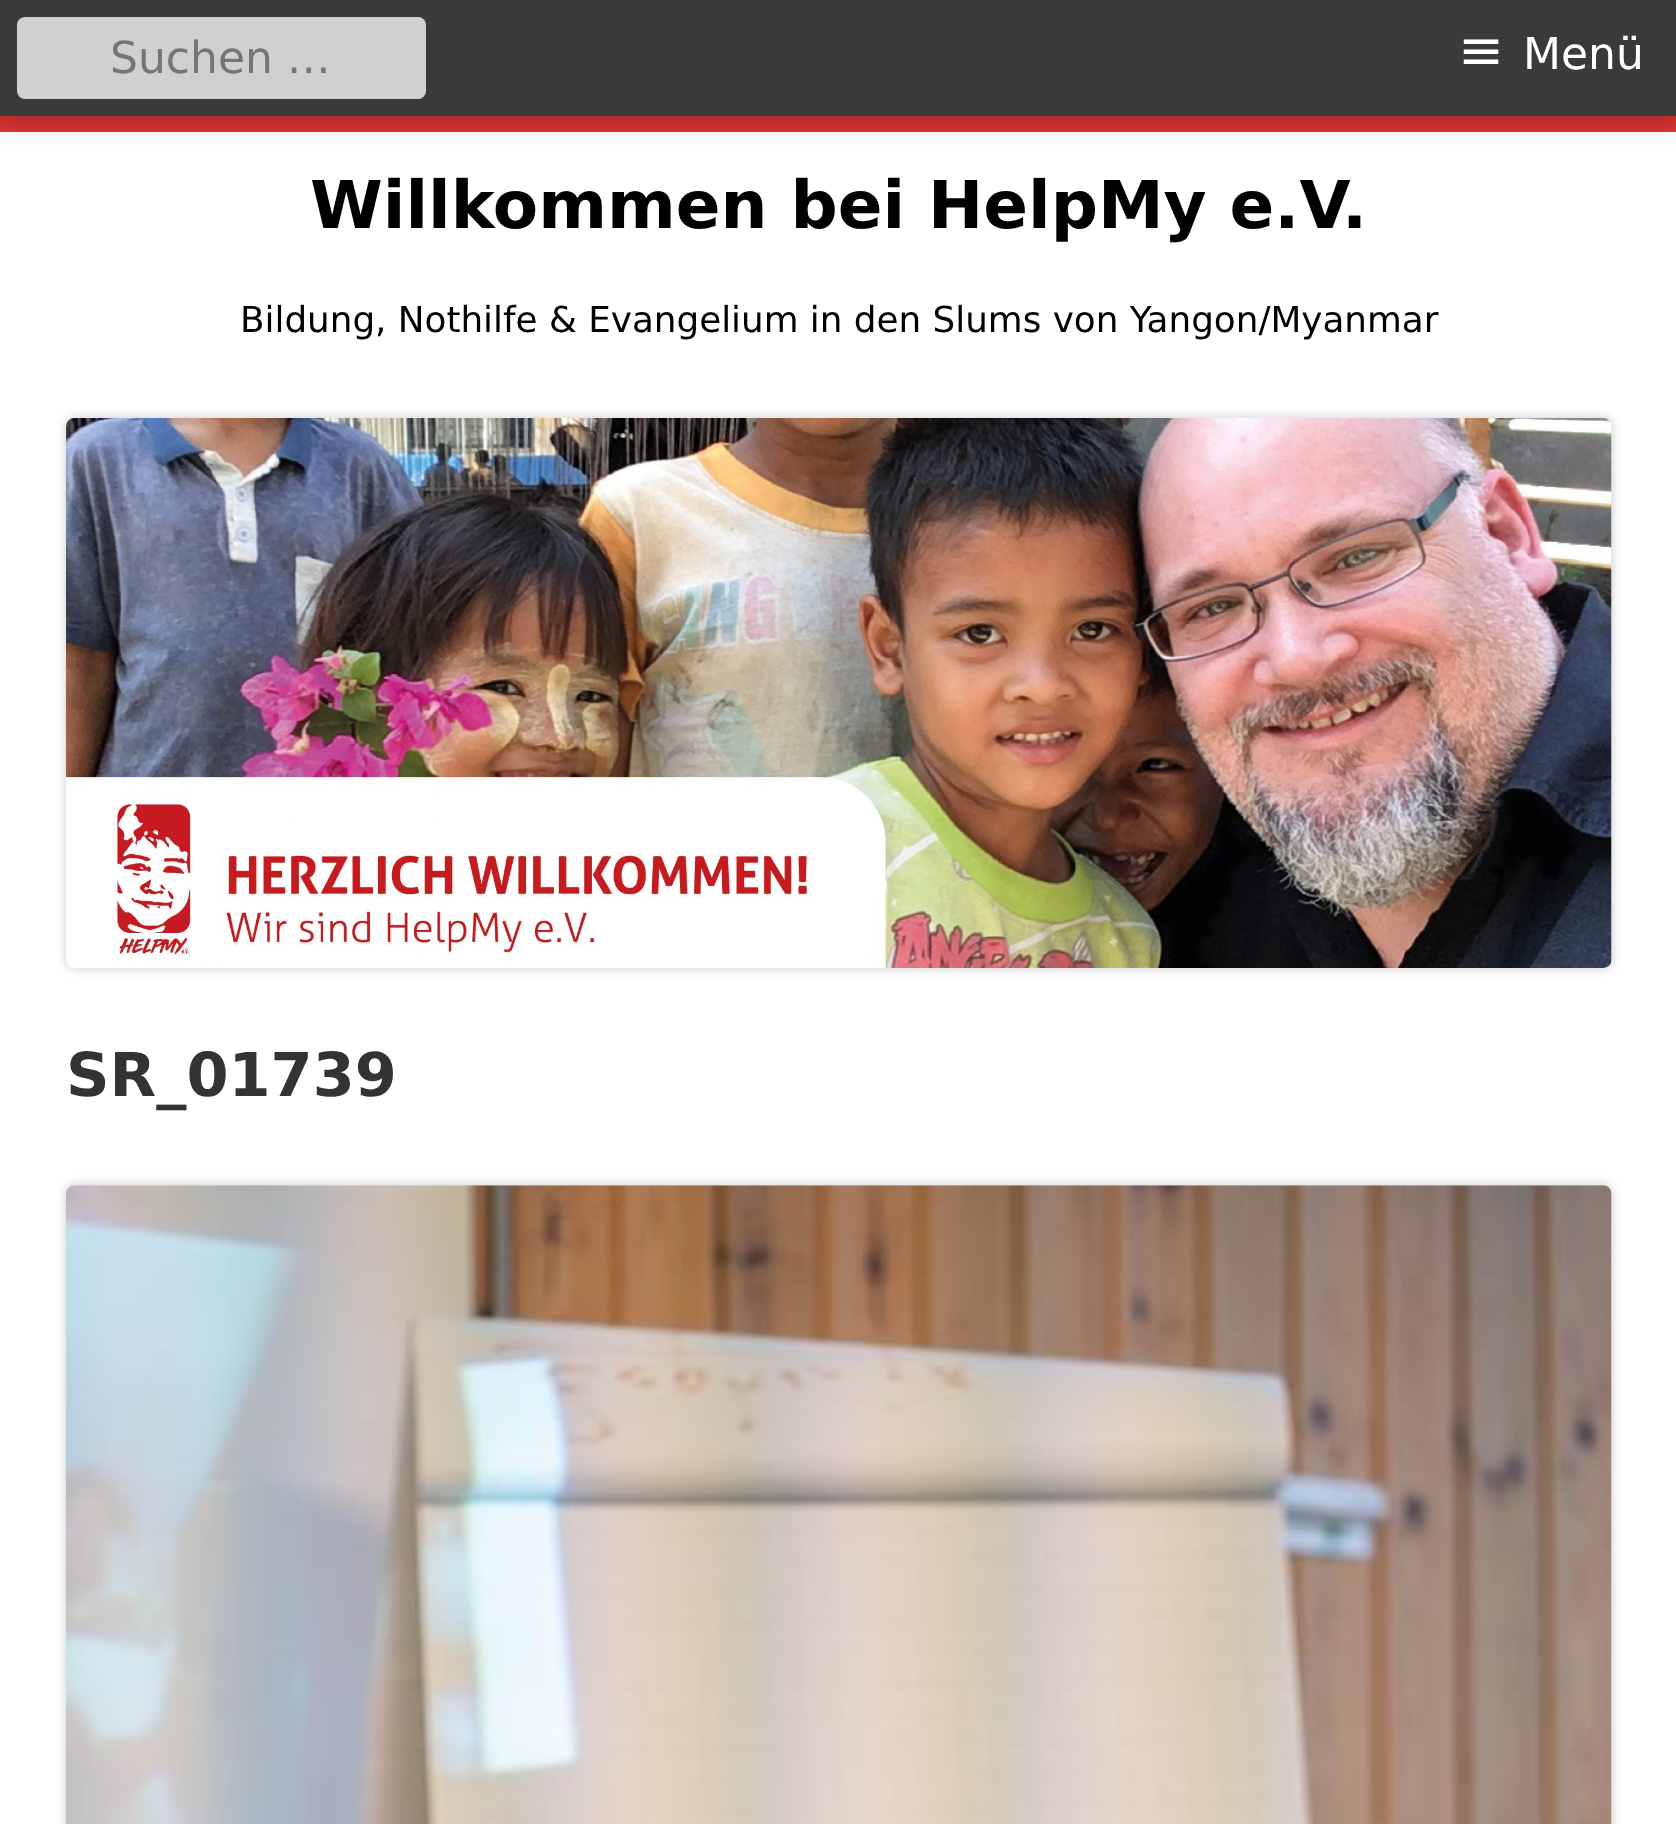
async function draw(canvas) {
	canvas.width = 1676;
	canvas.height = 1824;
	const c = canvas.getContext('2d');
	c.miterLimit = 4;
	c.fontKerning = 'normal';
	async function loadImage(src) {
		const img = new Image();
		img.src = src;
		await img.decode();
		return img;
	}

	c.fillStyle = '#d33';
	c.fillRect(0, 0, 1676, 1824);
	c.fillStyle = '#fff';
	c.fillRect(0, 132, 1676, 1692);
	c.fillStyle = '#00000066';
	c.filter = 'blur(14px)';
	c.beginPath();
	c.rect(0, 0, 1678, 116);
	c.fill();
	c.filter = 'none';
	c.fillStyle = '#3a3a3a';
	c.fillRect(0, 0, 1676, 116);
	c.fillStyle = '#d0d0d0';
	c.beginPath();
	c.roundRect(17, 17, 409, 82, 8);
	c.fill();
	c.font = '44px DejaVu Sans';
	c.fillStyle = '#757575';
	c.fillText('Suchen …', 110, 73);
	c.font = '55px DejaVu Sans';
	c.fillStyle = '#fff';
	c.fillText('≡', 1458, 69);
	c.font = '44px DejaVu Sans';
	c.fillText('Menü', 1523, 69);
	c.font = 'bold 66px DejaVu Sans';
	c.fillStyle = '#000';
	c.fillText('Willkommen bei HelpMy e.V.', 310, 228);
	c.font = '35.75px DejaVu Sans';
	c.fillText('Bildung, Nothilfe & Evangelium in den Slums von Yangon/Myanmar', 240, 332);
	c.fillStyle = '#00000033';
	c.filter = 'blur(5.5px)';
	c.beginPath();
	c.roundRect(66, 418, 1546, 550, 8);
	c.fill();
	c.filter = 'none';
	c.drawImage(await loadImage('img1.png'), 66, 418, 1546, 550);
	c.font = 'bold 60.5px DejaVu Sans';
	c.fillStyle = '#333';
	c.fillText('SR_01739', 66, 1096);
	c.fillStyle = '#00000033';
	c.filter = 'blur(5.5px)';
	c.beginPath();
	c.roundRect(66, 1185, 1546, 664, 8);
	c.fill();
	c.filter = 'none';
	c.drawImage(await loadImage('img2.png'), 66, 1185, 1546, 639);
}

draw(document.querySelector('canvas'));
